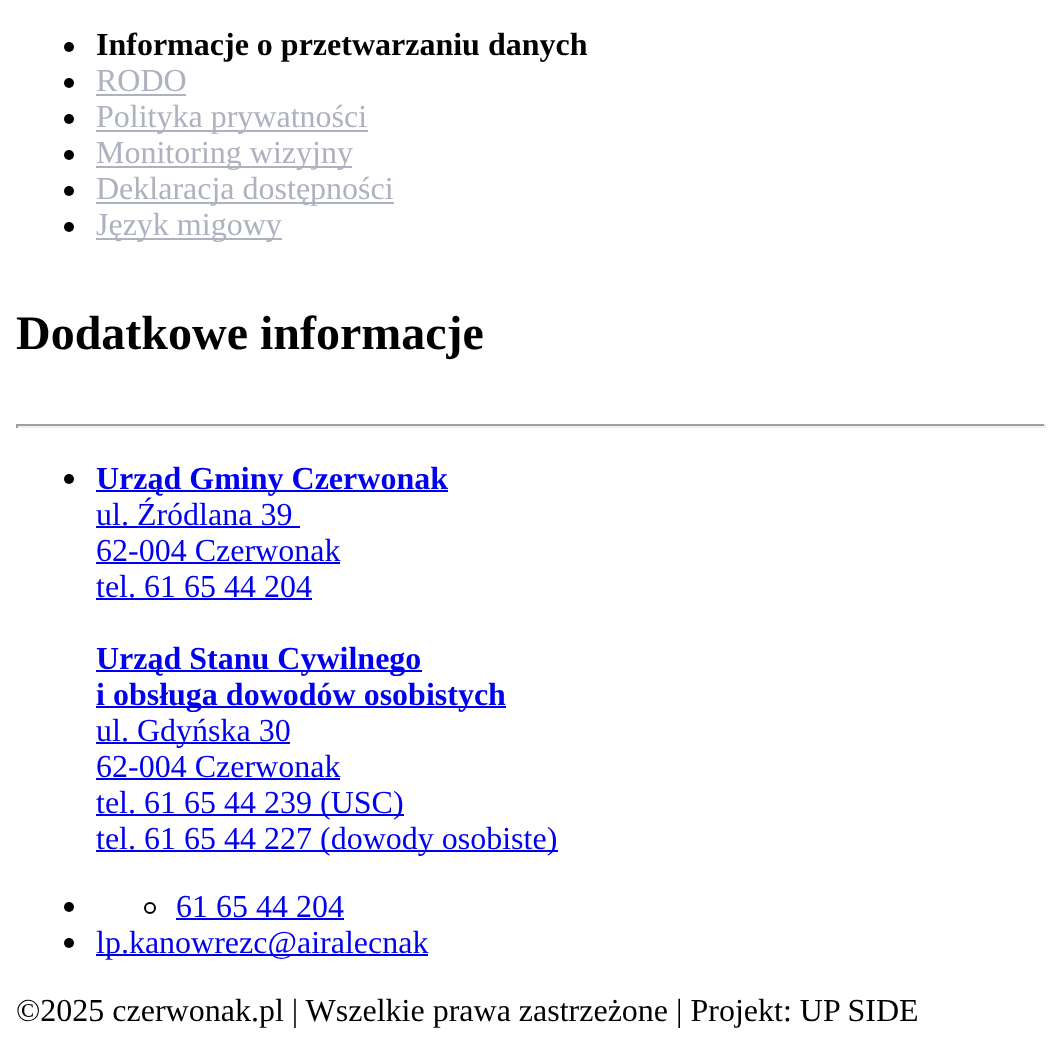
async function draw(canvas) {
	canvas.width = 1061;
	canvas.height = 1059;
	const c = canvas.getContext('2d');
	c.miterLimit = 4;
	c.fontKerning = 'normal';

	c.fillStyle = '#fff';
	c.fillRect(0, 0, 1061, 1059);
	c.fillStyle = '#000';
	c.beginPath();
	c.arc(69, 47, 5, 0, 2 * Math.PI);
	c.fill();
	c.font = 'bold 32px Liberation Serif';
	c.fillText('Informacje o przetwarzaniu danych', 96, 55);
	c.beginPath();
	c.arc(69, 83, 5, 0, 2 * Math.PI);
	c.fill();
	c.font = '32px Liberation Serif';
	c.fillStyle = '#aeb1be';
	c.fillText('RODO', 96, 91);
	c.fillRect(96, 94, 90, 2);
	c.fillStyle = '#000';
	c.beginPath();
	c.arc(69, 119, 5, 0, 2 * Math.PI);
	c.fill();
	c.fillStyle = '#aeb1be';
	c.fillRect(96, 130, 272, 2);
	c.fillText('Polityka prywatności', 96, 127);
	c.fillStyle = '#000';
	c.beginPath();
	c.arc(69, 155, 5, 0, 2 * Math.PI);
	c.fill();
	c.fillStyle = '#aeb1be';
	c.fillRect(96, 166, 256, 2);
	c.fillText('Monitoring wizyjny', 96, 163);
	c.fillStyle = '#000';
	c.beginPath();
	c.arc(69, 191, 5, 0, 2 * Math.PI);
	c.fill();
	c.fillStyle = '#aeb1be';
	c.fillRect(96, 202, 298, 2);
	c.fillText('Deklaracja dostępności', 96, 199);
	c.fillStyle = '#000';
	c.beginPath();
	c.arc(69, 227, 5, 0, 2 * Math.PI);
	c.fill();
	c.fillStyle = '#aeb1be';
	c.fillRect(96, 238, 186, 2);
	c.fillText('Język migowy', 96, 235);
	c.font = 'bold 48px Liberation Serif';
	c.fillStyle = '#000';
	c.fillText('Dodatkowe informacje', 16, 349);
	for (const [x, y, w, h, color] of [
		[16, 424, 1030, 2, '#9f9f9f'],
		[1044, 424, 2, 4, '#eee'],
		[16, 426, 1030, 2, '#eee'],
		[16, 424, 2, 4, '#9f9f9f'],
	]) {
		c.fillStyle = color;
		c.fillRect(x, y, w, h);
	}
	c.fillStyle = '#000';
	c.beginPath();
	c.arc(69, 479, 5, 0, 2 * Math.PI);
	c.fill();
	c.fillStyle = '#00e';
	c.fillRect(96, 490, 352, 2);
	c.font = 'bold 32px Liberation Serif';
	c.fillText('Urząd Gminy Czerwonak', 96, 489);
	c.font = '32px Liberation Serif';
	c.fillText('ul. Źródlana 39', 96, 525);
	c.fillRect(96, 526, 204, 2);
	c.fillText('62-004 Czerwonak', 96, 561);
	c.fillRect(96, 562, 244, 2);
	c.fillText('tel. 61 65 44 204', 96, 597);
	c.fillRect(96, 598, 216, 2);
	c.fillRect(96, 670, 326, 2);
	c.font = 'bold 32px Liberation Serif';
	c.fillText('Urząd Stanu Cywilnego', 96, 669);
	c.fillRect(96, 706, 410, 2);
	c.fillText('i obsługa dowodów osobistych', 96, 705);
	c.fillRect(96, 742, 194, 2);
	c.font = '32px Liberation Serif';
	c.fillText('ul. Gdyńska 30', 96, 741);
	c.fillText('62-004 Czerwonak', 96, 777);
	c.fillRect(96, 778, 244, 2);
	c.fillRect(96, 814, 308, 2);
	c.fillText('tel. 61 65 44 239 (USC)', 96, 813);
	c.fillRect(96, 850, 462, 2);
	c.fillText('tel. 61 65 44 227 (dowody osobiste)', 96, 849);
	c.fillStyle = '#000';
	c.beginPath();
	c.arc(69, 907, 5, 0, 2 * Math.PI);
	c.fill();
	c.beginPath();
	c.arc(150, 908, 5, 0, 2 * Math.PI);
	c.strokeStyle = '#000';
	c.lineWidth = 2;
	c.stroke();
	c.fillStyle = '#00e';
	c.fillText('61 65 44 204', 176, 917);
	c.fillRect(176, 918, 168, 2);
	c.fillStyle = '#000';
	c.beginPath();
	c.arc(69, 943, 5, 0, 2 * Math.PI);
	c.fill();
	c.fillStyle = '#00e';
	c.fillRect(96, 954, 332, 2);
	c.fillText('lp.kanowrezc@airalecnak', 96, 953);
	c.fillStyle = '#000';
	c.fillText('©2025 czerwonak.pl | Wszelkie prawa zastrzeżone | Projekt: UP SIDE', 16, 1021);
}

draw(document.querySelector('canvas'));
